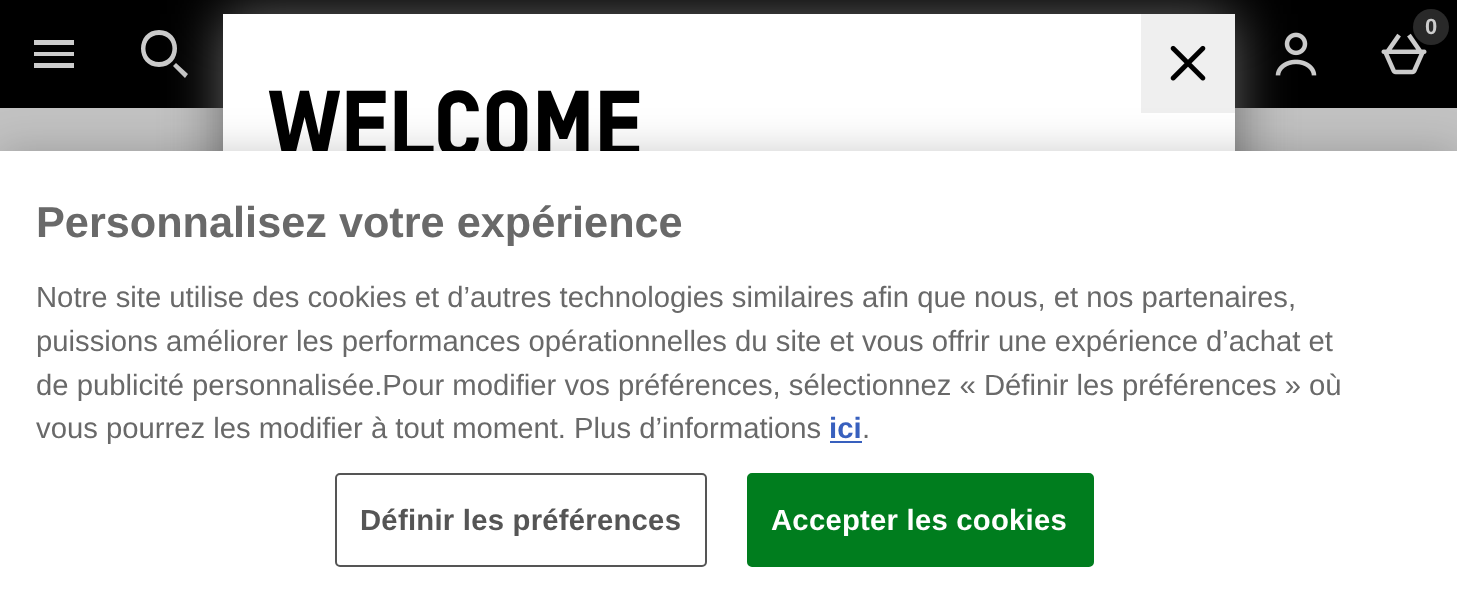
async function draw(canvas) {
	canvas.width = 1457;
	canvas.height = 603;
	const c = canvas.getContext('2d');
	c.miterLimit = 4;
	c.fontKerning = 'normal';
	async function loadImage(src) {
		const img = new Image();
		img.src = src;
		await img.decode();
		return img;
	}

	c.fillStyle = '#c2c2c2';
	c.fillRect(0, 0, 1457, 603);
	c.fillStyle = '#000';
	c.fillRect(0, 0, 1457, 108);
	c.drawImage(await loadImage('img1.png'), 1381, 33, 46, 42);
	c.fillStyle = '#292929';
	c.beginPath();
	c.arc(1431, 27, 18, 0, 2 * Math.PI);
	c.fill();
	c.font = 'bold 22px Liberation Sans';
	c.fillStyle = '#ccc';
	c.fillText('0', 1425, 34);
	c.beginPath();
	c.moveTo(34, 52);
	c.lineTo(74, 52);
	c.lineTo(74, 56);
	c.lineTo(34, 56);
	c.closePath();
	c.moveTo(34, 40);
	c.lineTo(74, 40);
	c.lineTo(74, 45);
	c.lineTo(34, 45);
	c.closePath();
	c.moveTo(34, 63);
	c.lineTo(74, 63);
	c.lineTo(74, 68);
	c.lineTo(34, 68);
	c.closePath();
	c.fill();
	c.beginPath();
	c.moveTo(159, 62);
	c.bezierCurveTo(177, 62, 177, 35, 159, 35);
	c.bezierCurveTo(141, 35, 141, 62, 159, 62);
	c.closePath();
	c.moveTo(159, 67);
	c.bezierCurveTo(135, 67, 135, 30, 159, 30);
	c.bezierCurveTo(183, 30, 183, 67, 159, 67);
	c.closePath();
	c.moveTo(188, 74);
	c.lineTo(185, 78);
	c.lineTo(173, 66);
	c.lineTo(176, 63);
	c.closePath();
	c.fill();
	c.drawImage(await loadImage('img2.png'), 1275, 32, 42, 44);
	c.fillStyle = '#666';
	c.filter = 'blur(28px)';
	c.beginPath();
	c.rect(223, 14, 1012, 576);
	c.fill();
	c.filter = 'none';
	c.fillStyle = '#fff';
	c.fillRect(223, 14, 1012, 137);
	c.fillStyle = '#efefef';
	c.fillRect(1141, 14, 94, 99);
	c.drawImage(await loadImage('img3.png'), 1170, 45, 36, 36);
	c.font = '900 94.5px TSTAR';
	c.fillStyle = '#000';
	c.fillText('WELCOME', 268, 158);
	c.fillStyle = '#00000033';
	c.filter = 'blur(20px)';
	c.beginPath();
	c.rect(0, 151, 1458, 452);
	c.fill();
	c.filter = 'none';
	c.fillStyle = '#fff';
	c.fillRect(0, 151, 1457, 452);
	c.font = 'bold 43.25px Liberation Sans';
	c.fillStyle = '#696969';
	c.fillText('Personnalisez votre expérience', 36, 237);
	c.font = '29.25px Liberation Sans';
	for (const [text, x, y] of [
		['Notre site utilise des cookies et d’autres technologies similaires afin que nous, et nos partenaires,', 36, 307],
		['puissions améliorer les performances opérationnelles du site et vous offrir une expérience d’achat et', 36, 351],
		['de publicité personnalisée.Pour modifier vos préférences, sélectionnez « Définir les préférences » où', 36, 395],
		['vous pourrez les modifier à tout moment. Plus d’informations', 36, 438],
	]) {
		c.fillText(text, x, y);
	}
	c.font = 'bold 29.25px Liberation Sans';
	c.fillStyle = '#3860be';
	c.fillText('ici', 829, 438);
	c.fillRect(830, 441, 32, 2);
	c.font = '29.25px Liberation Sans';
	c.fillStyle = '#696969';
	c.fillText('.', 862, 438);
	c.beginPath();
	c.roundRect(336, 474, 370, 92, 4);
	c.strokeStyle = '#555';
	c.lineWidth = 2;
	c.stroke();
	c.letterSpacing = '0.25px';
	c.font = 'bold 29.25px Liberation Sans';
	c.fillStyle = '#555';
	c.fillText('Définir les préférences', 360, 530);
	c.fillStyle = '#007d1e';
	c.beginPath();
	c.roundRect(748, 474, 345, 92, 4);
	c.fill();
	c.strokeStyle = '#007d1e';
	c.stroke();
	c.fillStyle = '#fff';
	c.fillText('Accepter les cookies', 771, 530);
}

draw(document.querySelector('canvas'));
